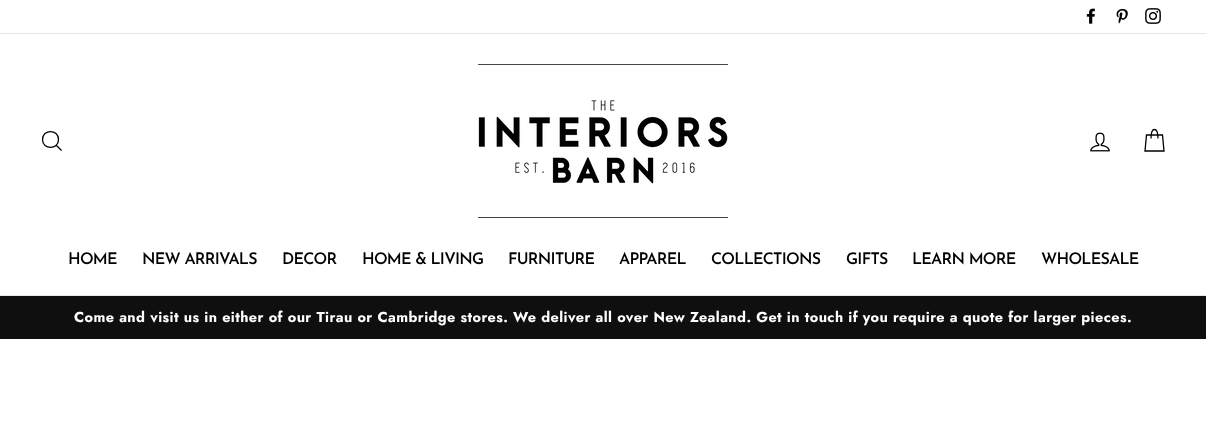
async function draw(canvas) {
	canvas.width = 1206;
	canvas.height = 425;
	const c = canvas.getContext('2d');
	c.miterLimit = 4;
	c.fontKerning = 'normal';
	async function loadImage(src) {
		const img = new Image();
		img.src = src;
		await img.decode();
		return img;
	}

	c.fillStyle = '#fff';
	c.fillRect(0, 0, 1206, 425);
	c.drawImage(await loadImage('img1.png'), 1086, 8, 9, 16);
	c.drawImage(await loadImage('img2.png'), 1116, 8, 12, 16);
	c.drawImage(await loadImage('img3.png'), 1145, 8, 16, 16);
	c.fillStyle = '#e6e6e6';
	c.fillRect(0, 33, 1206, 1);
	c.fillStyle = '#e8e8e1';
	c.fillRect(0, 295, 1206, 1);
	c.beginPath();
	c.moveTo(58.5, 139.5);
	c.bezierCurveTo(58.5, 150, 42.5, 150, 42.5, 139.5);
	c.bezierCurveTo(42.5, 129, 58.5, 129, 58.5, 139.5);
	c.closePath();
	c.moveTo(61.5, 150.5);
	c.lineTo(56.5, 145.5);
	c.strokeStyle = '#000';
	c.lineWidth = 1.3;
	c.stroke();
	c.drawImage(await loadImage('img4.png'), 478, 64, 250, 154);
	c.drawImage(await loadImage('img5.png'), 1090, 132, 20, 20);
	c.beginPath();
	c.moveTo(1151, 138.5);
	c.bezierCurveTo(1151, 126.5, 1158, 126.5, 1158, 138.5);
	c.moveTo(1146.5, 135);
	c.lineTo(1162.5, 135);
	c.lineTo(1164, 151);
	c.lineTo(1145, 151);
	c.closePath();
	c.stroke();
	c.letterSpacing = '-0.75px';
	c.font = '600 16px Josefin Sans';
	c.fillStyle = '#000';
	for (const [text, x, y] of [
		['HOME', 68, 264],
		['NEW ARRIVALS', 142, 264],
		['DECOR', 282, 264],
		['HOME & LIVING', 362, 264],
		['FURNITURE', 508, 264],
		['APPAREL', 619, 264],
		['COLLECTIONS', 711, 264],
		['GIFTS', 846, 264],
		['LEARN MORE', 912, 264],
		['WHOLESALE', 1041, 264],
	]) {
		c.fillText(text, x, y);
	}
	c.fillStyle = '#0f0f0f';
	c.fillRect(0, 296, 1206, 43);
	c.letterSpacing = '0.42px';
	c.font = 'bold 14.45px Jost';
	c.fillStyle = '#fff';
	c.fillText('Come and visit us in either of our Tirau or Cambridge stores. We deliver all over New Zealand. Get in touch if you require a quote for larger pieces.', 74, 322);
}

draw(document.querySelector('canvas'));
